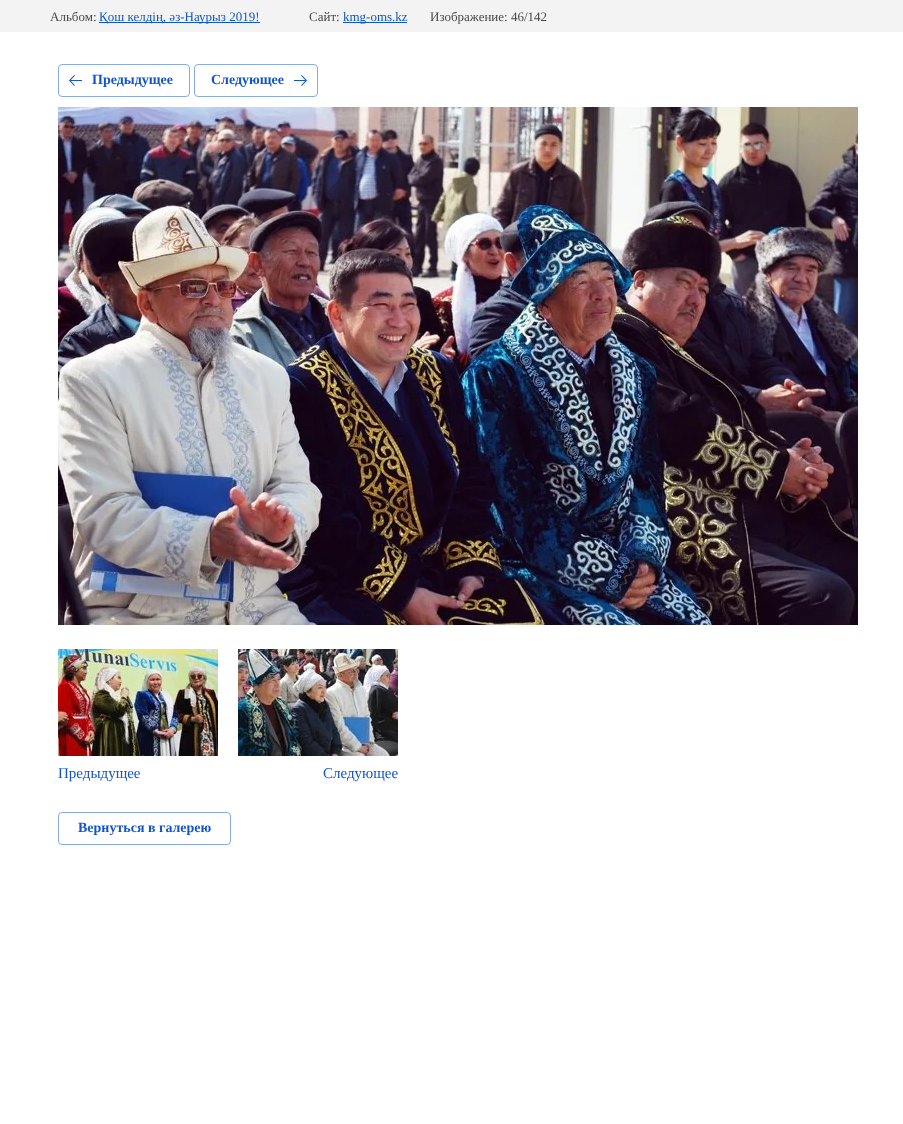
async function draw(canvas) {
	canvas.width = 903;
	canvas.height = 1124;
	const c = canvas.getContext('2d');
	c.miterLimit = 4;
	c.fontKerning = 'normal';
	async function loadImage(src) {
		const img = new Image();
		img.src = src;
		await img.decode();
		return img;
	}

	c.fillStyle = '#fff';
	c.fillRect(0, 0, 903, 1124);
	c.fillStyle = '#f3f3f3';
	c.fillRect(0, 0, 903, 32);
	c.font = '13px Liberation Serif';
	c.fillStyle = '#484848';
	c.fillText('Альбом:', 50, 21);
	c.fillStyle = '#15c';
	c.fillRect(99, 22, 161, 1);
	c.fillText('Қош келдің, әз-Наурыз 2019!', 99, 21);
	c.fillStyle = '#484848';
	c.fillText('Сайт:', 309, 21);
	c.fillStyle = '#15c';
	c.fillRect(343, 22, 64, 1);
	c.fillText('kmg-oms.kz', 343, 21);
	c.fillStyle = '#484848';
	c.fillText('Изображение: 46/142', 430, 21);
	c.beginPath();
	c.roundRect(58.5, 64.5, 131, 32, 3.5);
	c.strokeStyle = '#88aae6';
	c.stroke();
	c.drawImage(await loadImage('img1.png'), 69, 75, 13, 11);
	c.font = 'bold 14px Liberation Serif';
	c.fillStyle = '#15c';
	c.fillText('Предыдущее', 92, 84);
	c.beginPath();
	c.roundRect(194.5, 64.5, 123, 32, 3.5);
	c.stroke();
	c.fillText('Следующее', 211, 84);
	c.drawImage(await loadImage('img2.png'), 294, 75, 13, 11);
	c.drawImage(await loadImage('img3.png'), 58, 107, 800, 518);
	c.drawImage(await loadImage('img4.png'), 58, 649, 160, 107);
	c.font = '15px Liberation Serif';
	c.fillText('Предыдущее', 58, 778);
	c.drawImage(await loadImage('img5.png'), 238, 649, 160, 107);
	c.fillText('Следующее', 323, 778);
	c.beginPath();
	c.roundRect(58.5, 812.5, 172, 32, 3.5);
	c.stroke();
	c.font = 'bold 14px Liberation Serif';
	c.fillText('Вернуться в галерею', 78, 832);
}

draw(document.querySelector('canvas'));
